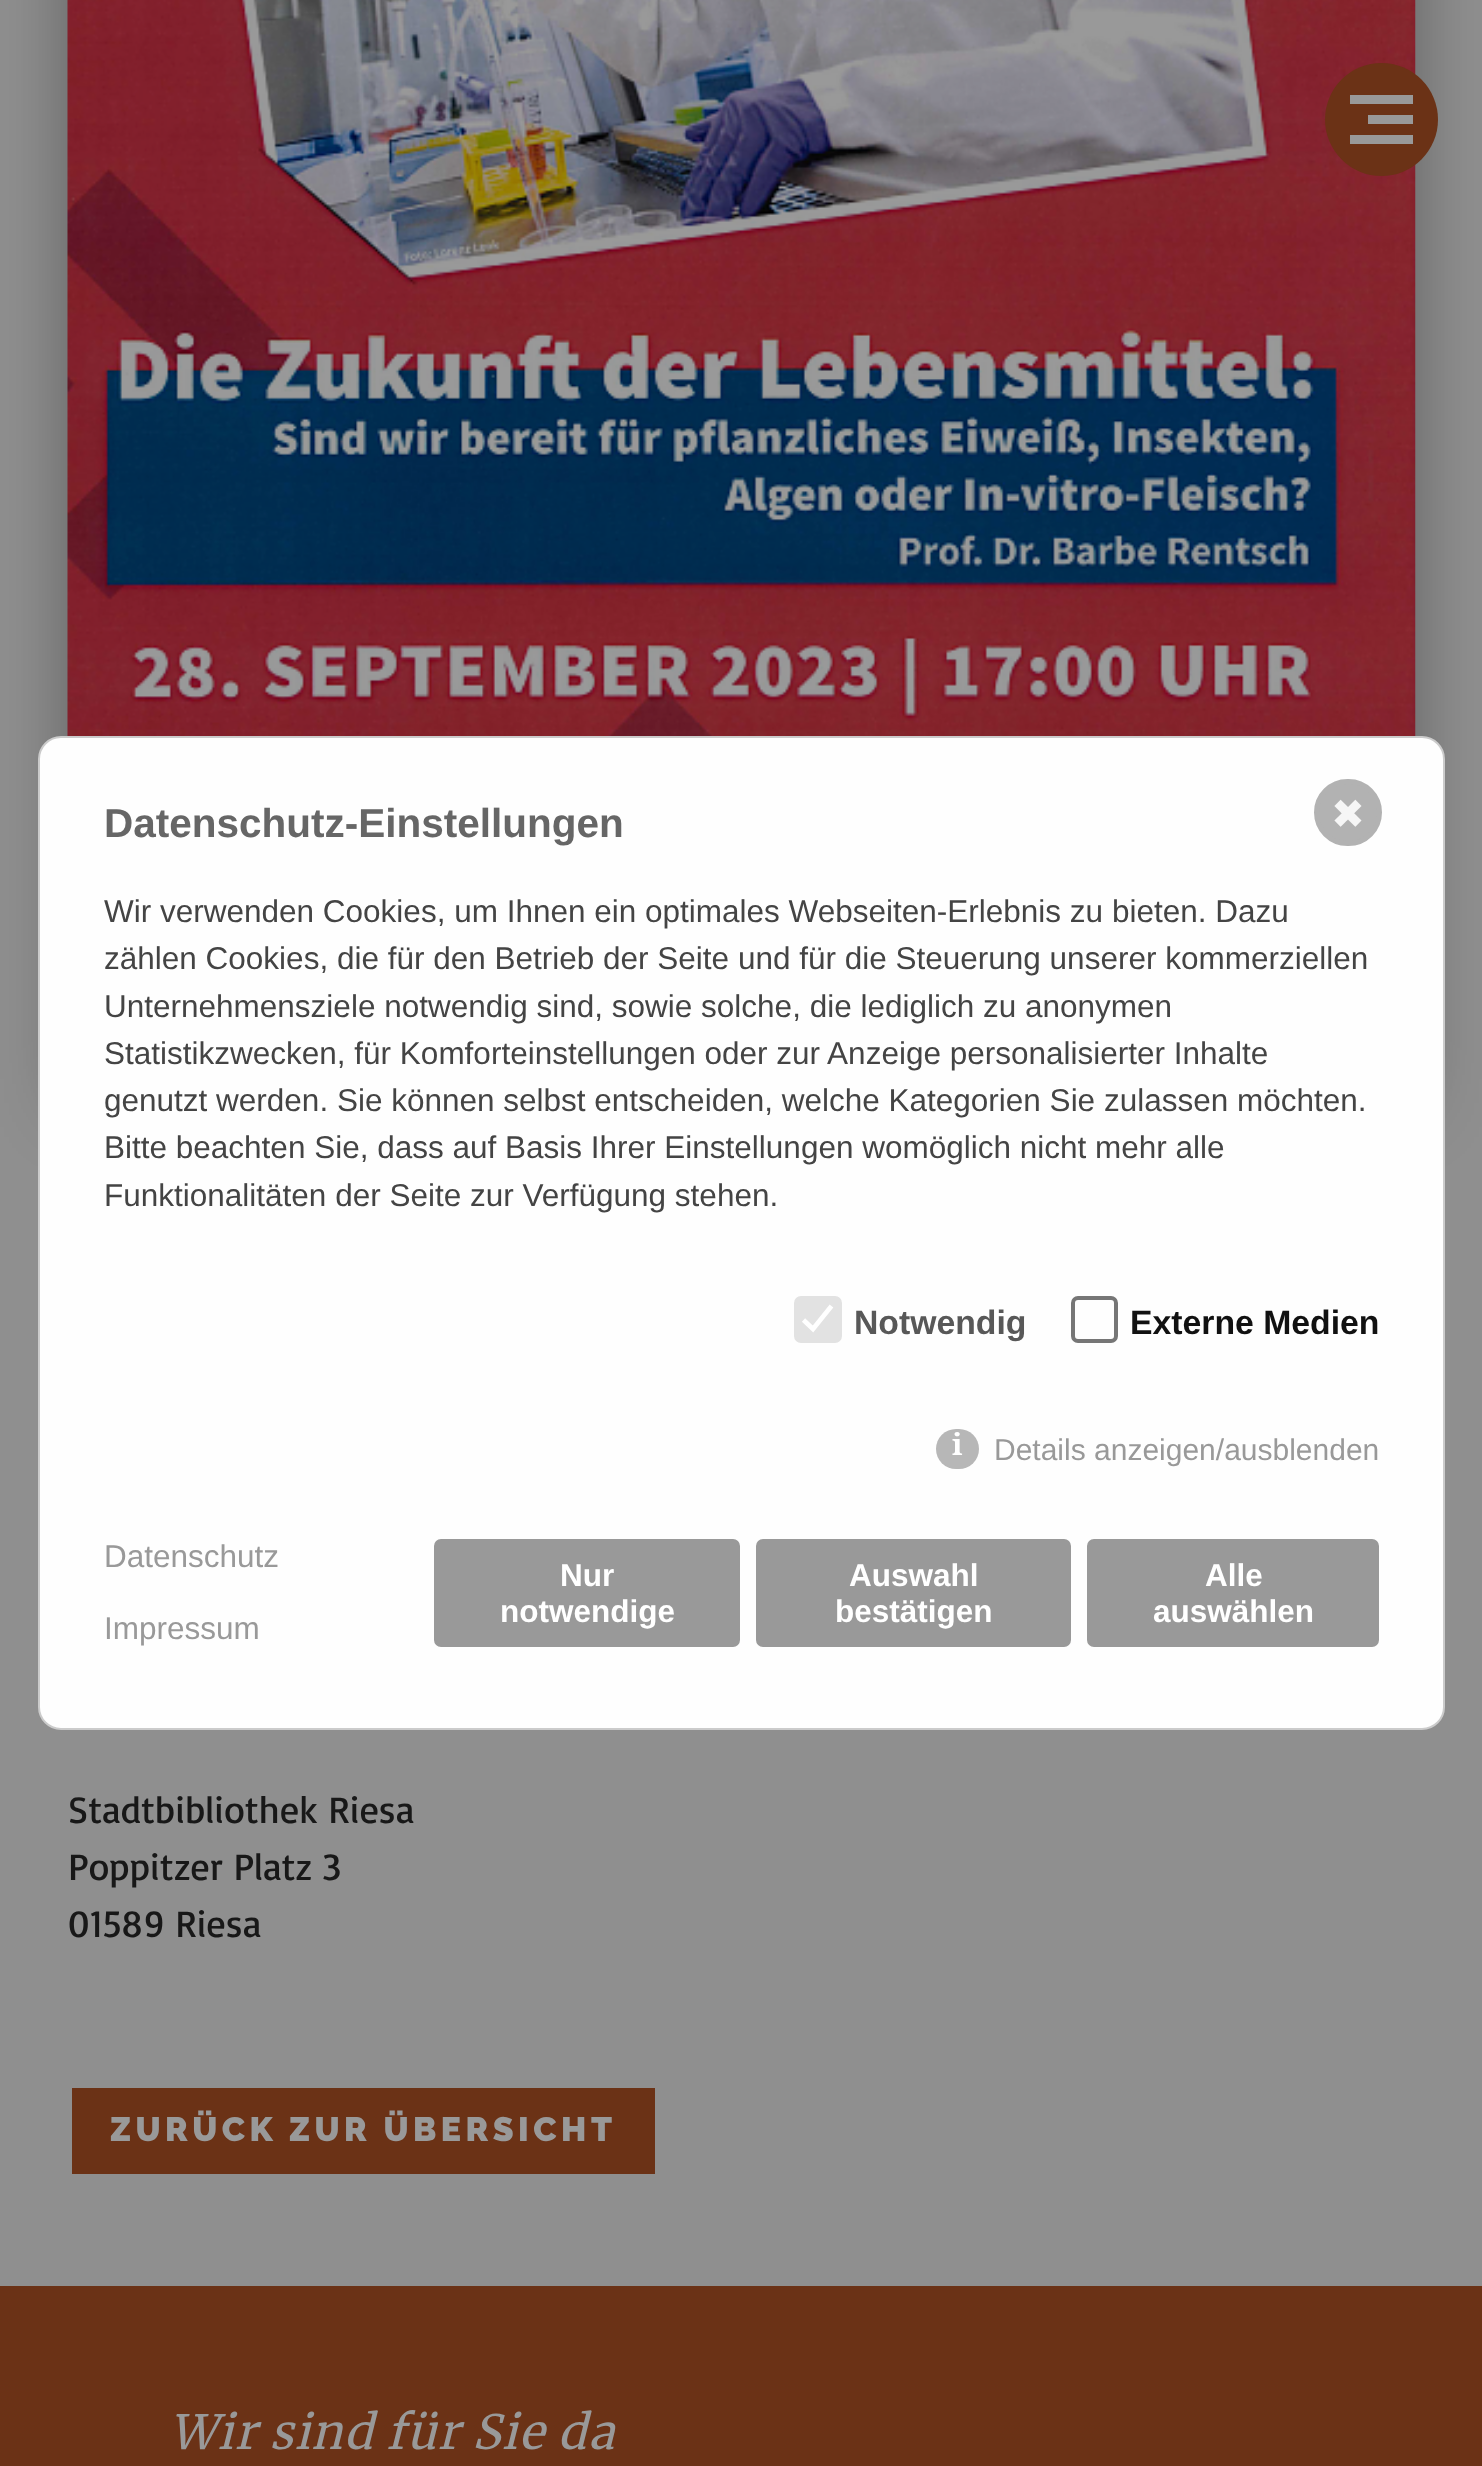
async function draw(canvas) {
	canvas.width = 1482;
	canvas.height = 2466;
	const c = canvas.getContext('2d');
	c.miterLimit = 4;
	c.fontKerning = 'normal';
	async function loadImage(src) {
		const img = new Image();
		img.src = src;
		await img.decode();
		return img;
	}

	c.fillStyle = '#6b3216';
	c.fillRect(0, 0, 1482, 2466);
	c.fillStyle = '#8f8f8f';
	c.fillRect(0, 0, 1482, 2286);
	c.fillStyle = '#00000054';
	c.filter = 'blur(36px)';
	c.beginPath();
	c.rect(68, -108, 1347, 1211);
	c.fill();
	c.filter = 'none';
	c.drawImage(await loadImage('img1.png'), 67, 0, 1349, 736);
	c.fillStyle = '#6b3216';
	c.beginPath();
	c.arc(1381.5, 119.5, 56.5, 0, 2 * Math.PI);
	c.fill();
	for (const [x, y, w, h, color] of [
		[1350, 95, 63, 9, '#999'],
		[1368, 115, 45, 9, '#999'],
		[1350, 135, 63, 9, '#999'],
	]) {
		c.fillStyle = color;
		c.fillRect(x, y, w, h);
	}
	c.fillStyle = '#fefefe';
	c.beginPath();
	c.roundRect(39, 737, 1405, 992, 22);
	c.fill();
	c.strokeStyle = '#cbcbcb';
	c.lineWidth = 2;
	c.stroke();
	c.fillStyle = '#b2b2b2';
	c.beginPath();
	c.roundRect(1316.5, 781.5, 63, 62, 31);
	c.fill();
	c.strokeStyle = '#b2b2b2';
	c.lineWidth = 5;
	c.stroke();
	c.font = '40.5px DejaVu Sans';
	c.fillStyle = '#f6f6f6';
	c.fillText('✖', 1331, 828);
	c.font = 'bold 40.5px Liberation Sans';
	c.fillStyle = '#666';
	c.fillText('Datenschutz-Einstellungen', 104, 837);
	c.font = '31.5px Liberation Sans';
	c.fillStyle = '#444';
	for (const [text, x, y] of [
		['Wir verwenden Cookies, um Ihnen ein optimales Webseiten-Erlebnis zu bieten. Dazu', 104, 922],
		['zählen Cookies, die für den Betrieb der Seite und für die Steuerung unserer kommerziellen', 104, 969],
		['Unternehmensziele notwendig sind, sowie solche, die lediglich zu anonymen', 104, 1017],
		['Statistikzwecken, für Komforteinstellungen oder zur Anzeige personalisierter Inhalte', 104, 1064],
		['genutzt werden. Sie können selbst entscheiden, welche Kategorien Sie zulassen möchten.', 104, 1111],
		['Bitte beachten Sie, dass auf Basis Ihrer Einstellungen womöglich nicht mehr alle', 104, 1158],
		['Funktionalitäten der Seite zur Verfügung stehen.', 104, 1206],
	]) {
		c.fillText(text, x, y);
	}
	c.fillStyle = '#e2e2e2';
	c.beginPath();
	c.roundRect(794, 1296, 48, 47, 7);
	c.fill();
	c.beginPath();
	c.moveTo(803.5, 1320);
	c.lineTo(813, 1329);
	c.lineTo(831.5, 1306);
	c.strokeStyle = '#fff';
	c.lineWidth = 4.7;
	c.stroke();
	c.font = 'bold 33.75px Liberation Sans';
	c.fillStyle = '#585858';
	c.fillText('Notwendig', 854, 1334);
	c.beginPath();
	c.roundRect(1073, 1298, 43, 43, 5);
	c.strokeStyle = '#767676';
	c.lineWidth = 4;
	c.stroke();
	c.fillStyle = '#111';
	c.fillText('Externe Medien', 1130, 1334);
	c.fillStyle = '#b7b7b7';
	c.beginPath();
	c.roundRect(936, 1429, 43, 40, 20);
	c.fill();
	c.font = 'bold 30px Noto Serif';
	c.fillStyle = '#fff';
	c.fillText('i', 952, 1455);
	c.font = '30px Liberation Sans';
	c.fillStyle = '#999';
	c.fillText('Details anzeigen/ausblenden', 994, 1460);
	c.font = '31.5px Liberation Sans';
	c.fillText('Datenschutz', 104, 1567);
	c.fillText('Impressum', 104, 1639);
	c.beginPath();
	c.roundRect(435, 1540, 304, 106, 6);
	c.fill();
	c.strokeStyle = '#999';
	c.lineWidth = 2;
	c.stroke();
	c.font = 'bold 31.5px Liberation Sans';
	c.fillStyle = '#fff';
	c.fillText('Nur', 560, 1586);
	c.fillText('notwendige', 500, 1622);
	c.fillStyle = '#999';
	c.beginPath();
	c.roundRect(757, 1540, 313, 106, 6);
	c.fill();
	c.stroke();
	c.fillStyle = '#fff';
	c.fillText('Auswahl', 849, 1586);
	c.fillText('bestätigen', 835, 1622);
	c.fillStyle = '#999';
	c.beginPath();
	c.roundRect(1088, 1540, 290, 106, 6);
	c.fill();
	c.stroke();
	c.fillStyle = '#fff';
	c.fillText('Alle', 1205, 1586);
	c.fillText('auswählen', 1153, 1622);
	c.font = '38.25px Basic';
	c.fillStyle = '#181818';
	for (const [text, x, y] of [
		['Stadtbibliothek Riesa', 68, 1823],
		['Poppitzer Platz 3', 68, 1880],
		['01589 Riesa', 68, 1937],
	]) {
		c.fillText(text, x, y);
	}
	c.fillStyle = '#6b3216';
	c.fillRect(72, 2088, 583, 86);
	c.letterSpacing = '4.5px';
	c.font = '900 33.75px Raleway';
	c.fillStyle = '#999';
	c.fillText('ZURÜCK ZUR ÜBERSICHT', 110, 2141);
	c.letterSpacing = '1.1px';
	c.font = 'italic 47.25px Merriweather';
	c.fillText('Wir sind für Sie da', 169, 2449);
}

draw(document.querySelector('canvas'));
